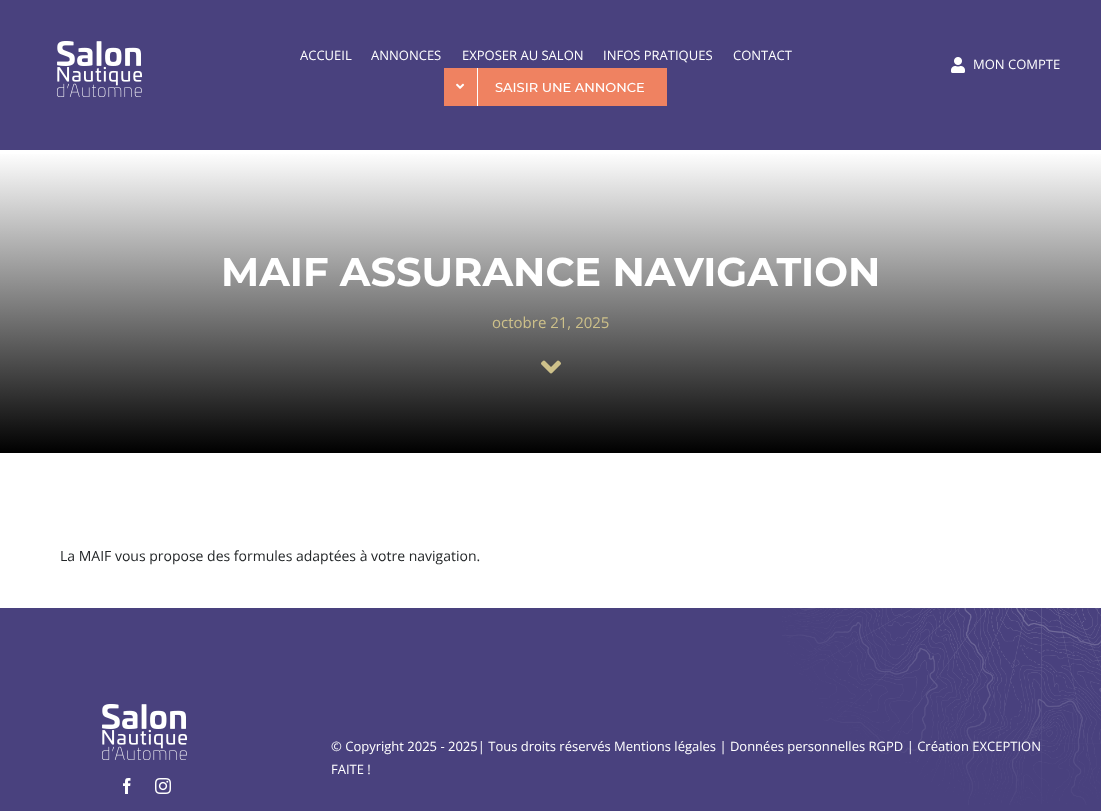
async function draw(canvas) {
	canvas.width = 1101;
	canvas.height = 811;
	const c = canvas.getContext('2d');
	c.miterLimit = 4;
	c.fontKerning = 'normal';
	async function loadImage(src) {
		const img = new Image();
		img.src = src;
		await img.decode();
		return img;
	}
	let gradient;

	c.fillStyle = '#fff';
	c.fillRect(0, 0, 1101, 811);
	c.fillStyle = '#49417e';
	c.fillRect(0, 0, 1101, 150);
	c.drawImage(await loadImage('img1.png'), 57, 41, 85, 56);
	c.font = '13px Open Sans';
	c.fillStyle = '#fff';
	for (const [text, x, y] of [
		['ACCUEIL', 300, 60],
		['ANNONCES', 371, 60],
		['EXPOSER AU SALON', 462, 60],
		['INFOS PRATIQUES', 603, 60],
		['CONTACT', 733, 60],
	]) {
		c.fillText(text, x, y);
	}
	c.fillStyle = '#ef8261';
	c.fillRect(444, 68, 223, 38);
	c.fillStyle = '#fff';
	c.fillRect(477, 68, 1, 38);
	c.drawImage(await loadImage('img2.png'), 456, 83, 9, 6);
	c.font = '500 13px Montserrat';
	c.fillText('SAISIR UNE ANNONCE', 495, 92);
	c.drawImage(await loadImage('img3.png'), 951, 57, 14, 16);
	c.font = '13px Open Sans';
	c.fillText('MON COMPTE', 973, 69);
	gradient = c.createLinearGradient(551, 453, 551, 40);
	gradient.addColorStop(0, '#000');
	gradient.addColorStop(0.73, '#fff');
	c.fillStyle = gradient;
	c.fillRect(0, 154, 1101, 299);
	c.font = 'bold 40px Montserrat';
	c.fillStyle = '#fff';
	c.fillText('MAIF ASSURANCE NAVIGATION', 221, 286);
	c.font = '15px Open Sans';
	c.fillStyle = '#cec18a';
	c.fillText('octobre 21, 2025', 492, 328);
	c.drawImage(await loadImage('img4.png'), 541, 360, 20, 14);
	c.font = '14px Open Sans';
	c.fillStyle = '#232628';
	c.fillText('La MAIF vous propose des formules adaptées à votre navigation.', 60, 561);
	c.fillStyle = '#49417e';
	c.fillRect(0, 608, 1101, 203);
	c.drawImage(await loadImage('img5.png'), 782, 608, 319, 197);
	c.drawImage(await loadImage('img1.png'), 102, 704, 85, 56);
	c.drawImage(await loadImage('img6.png'), 123, 778, 8, 16);
	c.drawImage(await loadImage('img7.png'), 155, 778, 16, 16);
	c.font = '13px Open Sans';
	c.fillStyle = '#fff';
	c.fillText('© Copyright 2025 - 2025| Tous droits réservés Mentions légales | Données personnelles RGPD | Création EXCEPTION', 331, 751);
	c.fillText('FAITE !', 331, 774);
}

draw(document.querySelector('canvas'));
